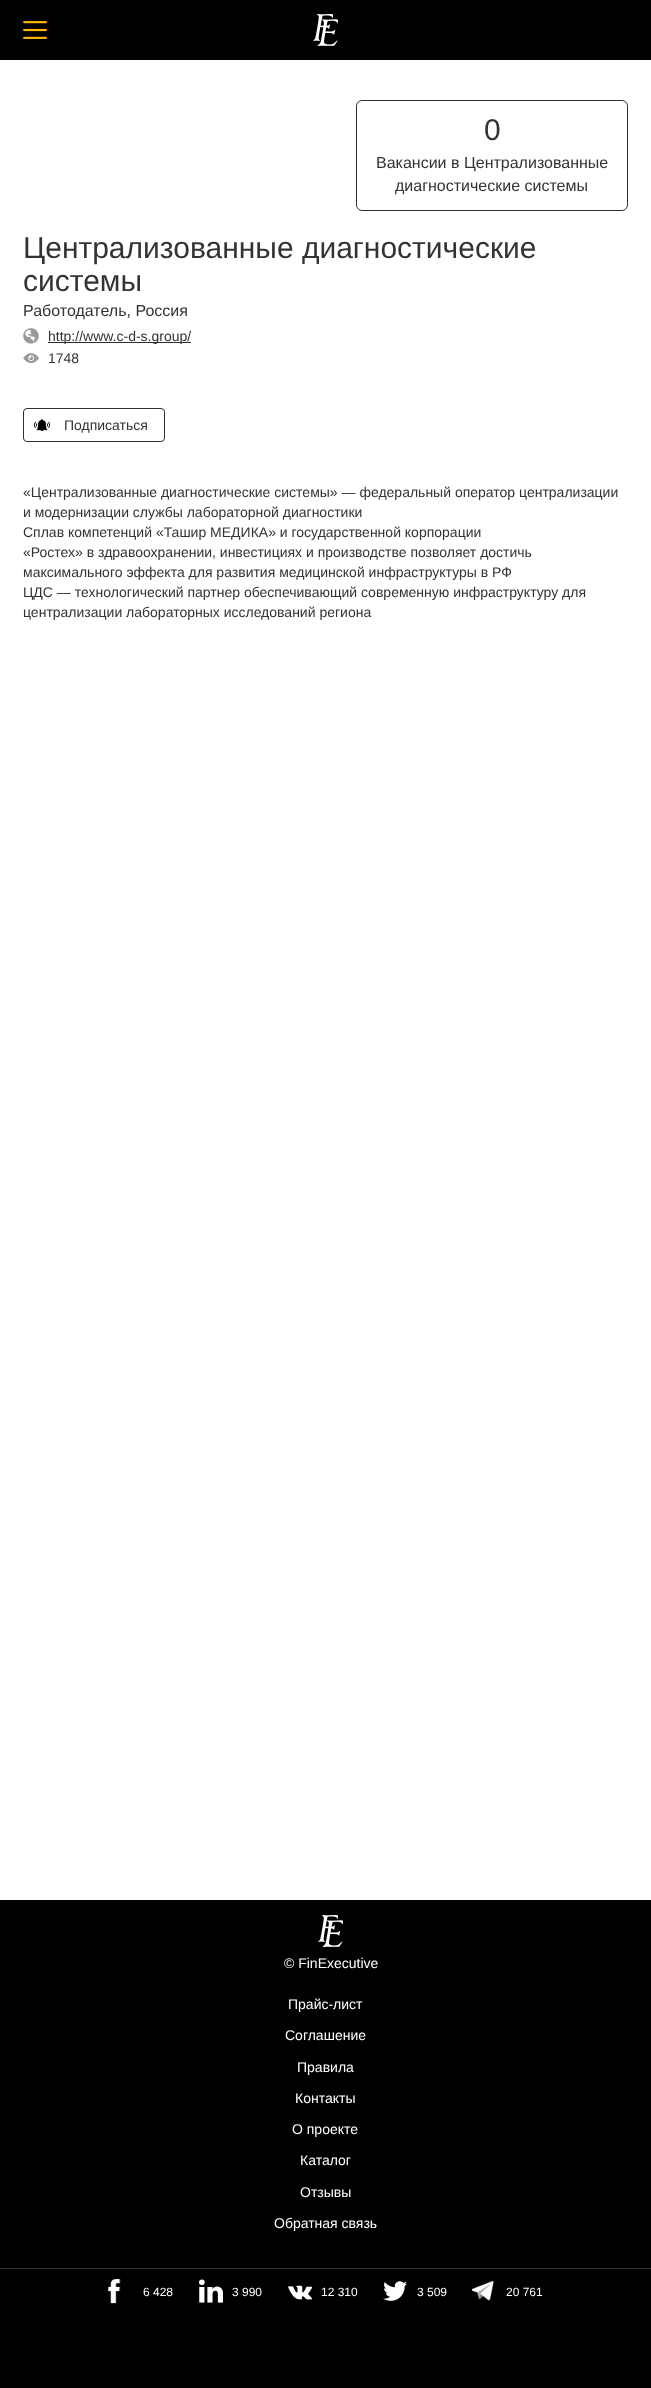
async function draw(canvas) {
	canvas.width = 651;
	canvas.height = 2388;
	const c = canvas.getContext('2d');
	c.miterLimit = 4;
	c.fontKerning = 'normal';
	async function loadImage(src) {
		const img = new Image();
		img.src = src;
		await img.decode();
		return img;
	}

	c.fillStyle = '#fff';
	c.fillRect(0, 0, 651, 2388);
	c.fillStyle = '#000';
	c.fillRect(0, 0, 651, 60);
	c.drawImage(await loadImage('img1.png'), 23, 21, 24, 18);
	c.drawImage(await loadImage('img2.png'), 313, 14, 25, 32);
	c.beginPath();
	c.roundRect(356.5, 100.5, 271, 110, 5.5);
	c.strokeStyle = '#2f2f2f';
	c.stroke();
	c.font = '30px Liberation Sans';
	c.fillStyle = '#333';
	c.fillText('0', 484, 140);
	c.font = '16px Liberation Sans';
	c.fillText('Вакансии в Централизованные', 376, 168);
	c.fillText('диагностические системы', 395, 191);
	c.font = '30px Liberation Sans';
	c.fillText('Централизованные диагностические', 23, 258);
	c.fillText('системы', 23, 291);
	c.font = '16px Liberation Sans';
	c.fillText('Работодатель, Россия', 23, 316);
	c.drawImage(await loadImage('img3.png'), 23, 328, 16, 16);
	c.fillStyle = '#2f2f2f';
	c.fillRect(48, 342, 143, 1);
	c.font = '14px Liberation Sans';
	c.fillStyle = '#333';
	c.fillText('http://www.c-d-s.group/', 48, 341);
	c.drawImage(await loadImage('img4.png'), 23, 353, 16, 10);
	c.fillText('1748', 48, 363);
	c.drawImage(await loadImage('img5.png'), 34, 418, 16, 13);
	c.beginPath();
	c.roundRect(23.5, 408.5, 141, 33, 3.5);
	c.stroke();
	for (const [text, x, y] of [
		['Подписаться', 64, 430],
		['«Централизованные диагностические системы» — федеральный оператор централизации', 23, 497],
		['и модернизации службы лабораторной диагностики', 23, 517],
		['Сплав компетенций «Ташир МЕДИКА» и государственной корпорации', 23, 537],
		['«Ростех» в здравоохранении, инвестициях и производстве позволяет достичь', 23, 557],
		['максимального эффекта для развития медицинской инфраструктуры в РФ', 23, 577],
		['ЦДС — технологический партнер обеспечивающий современную инфраструктуру для', 23, 597],
		['централизации лабораторных исследований региона', 23, 617],
	]) {
		c.fillText(text, x, y);
	}
	c.fillStyle = '#000';
	c.fillRect(0, 1900, 651, 488);
	c.drawImage(await loadImage('img2.png'), 318, 1915, 25, 32);
	c.fillStyle = '#fff';
	for (const [text, x, y] of [
		['© FinExecutive', 284, 1968],
		['Прайс-лист', 288, 2009],
		['Cоглашение', 285, 2040],
		['Правила', 297, 2072],
		['Контакты', 295, 2103],
		['О проекте', 292, 2134],
		['Каталог', 300, 2165],
		['Отзывы', 300, 2197],
		['Обратная связь', 274, 2228],
	]) {
		c.fillText(text, x, y);
	}
	c.fillStyle = '#333';
	c.fillRect(0, 2268, 651, 1);
	c.drawImage(await loadImage('img6.png'), 108, 2279, 13, 25);
	c.font = '12px Liberation Sans';
	c.fillStyle = '#fff';
	c.fillText('6 428', 143, 2296);
	c.drawImage(await loadImage('img7.png'), 199, 2279, 24, 24);
	c.fillText('3 990', 232, 2296);
	c.drawImage(await loadImage('img8.png'), 288, 2285, 24, 15);
	c.fillText('12 310', 321, 2296);
	c.drawImage(await loadImage('img9.png'), 383, 2281, 24, 20);
	c.fillText('3 509', 417, 2296);
	c.drawImage(await loadImage('img10.png'), 472, 2280, 22, 21);
	c.fillText('20 761', 506, 2296);
}

draw(document.querySelector('canvas'));
